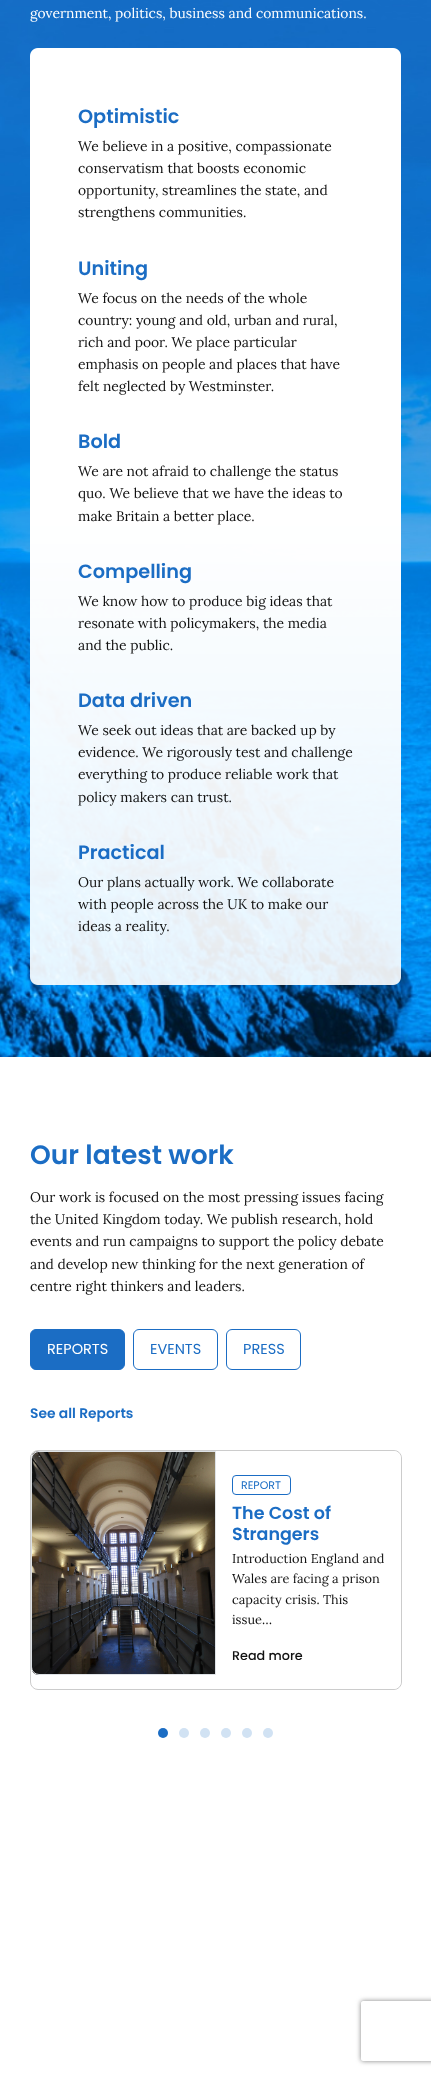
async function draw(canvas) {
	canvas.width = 431;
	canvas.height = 2075;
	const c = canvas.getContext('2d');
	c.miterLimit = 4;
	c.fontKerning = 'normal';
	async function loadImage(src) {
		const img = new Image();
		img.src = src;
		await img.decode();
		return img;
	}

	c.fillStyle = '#fff';
	c.fillRect(0, 0, 431, 2075);
	c.drawImage(await loadImage('img1.png'), 0, 0, 431, 1057);
	c.font = '13.85px Lora';
	c.fillText('government, politics, business and communications.', 30, 18);
	c.font = '600 19.25px Poppins';
	c.fillStyle = '#1b6dc4';
	c.fillText('Optimistic', 78, 123);
	c.font = '13.85px Lora';
	c.fillStyle = '#111';
	for (const [text, x, y] of [
		['We believe in a positive, compassionate', 78, 151],
		['conservatism that boosts economic', 78, 173],
		['opportunity, streamlines the state, and', 78, 195],
		['strengthens communities.', 78, 217],
	]) {
		c.fillText(text, x, y);
	}
	c.font = '600 19.25px Poppins';
	c.fillStyle = '#1b6dc4';
	c.fillText('Uniting', 78, 275);
	c.font = '13.85px Lora';
	c.fillStyle = '#111';
	for (const [text, x, y] of [
		['We focus on the needs of the whole', 78, 303],
		['country: young and old, urban and rural,', 78, 325],
		['rich and poor. We place particular', 78, 347],
		['emphasis on people and places that have', 78, 369],
		['felt neglected by Westminster.', 78, 391],
	]) {
		c.fillText(text, x, y);
	}
	c.font = '600 19.25px Poppins';
	c.fillStyle = '#1b6dc4';
	c.fillText('Bold', 78, 448);
	c.font = '13.85px Lora';
	c.fillStyle = '#111';
	for (const [text, x, y] of [
		['We are not afraid to challenge the status', 78, 476],
		['quo. We believe that we have the ideas to', 78, 498],
		['make Britain a better place.', 78, 521],
	]) {
		c.fillText(text, x, y);
	}
	c.font = '600 19.25px Poppins';
	c.fillStyle = '#1b6dc4';
	c.fillText('Compelling', 78, 578);
	c.font = '13.85px Lora';
	c.fillStyle = '#111';
	for (const [text, x, y] of [
		['We know how to produce big ideas that', 78, 606],
		['resonate with policymakers, the media', 78, 628],
		['and the public.', 78, 650],
	]) {
		c.fillText(text, x, y);
	}
	c.font = '600 19.25px Poppins';
	c.fillStyle = '#1b6dc4';
	c.fillText('Data driven', 78, 707);
	c.font = '13.85px Lora';
	c.fillStyle = '#111';
	for (const [text, x, y] of [
		['We seek out ideas that are backed up by', 78, 735],
		['evidence. We rigorously test and challenge', 78, 757],
		['everything to produce reliable work that', 78, 779],
		['policy makers can trust.', 78, 802],
	]) {
		c.fillText(text, x, y);
	}
	c.font = '600 19.25px Poppins';
	c.fillStyle = '#1b6dc4';
	c.fillText('Practical', 78, 859);
	c.font = '13.85px Lora';
	c.fillStyle = '#111';
	for (const [text, x, y] of [
		['Our plans actually work. We collaborate', 78, 887],
		['with people across the UK to make our', 78, 909],
		['ideas a reality.', 78, 931],
	]) {
		c.fillText(text, x, y);
	}
	c.font = '600 26.5px Poppins';
	c.fillStyle = '#1b6dc4';
	c.fillText('Our latest work', 30, 1164);
	c.font = '13.85px Lora';
	c.fillStyle = '#111';
	for (const [text, x, y] of [
		['Our work is focused on the most pressing issues facing', 30, 1202],
		['the United Kingdom today. We publish research, hold', 30, 1224],
		['events and run campaigns to support the policy debate', 30, 1246],
		['and develop new thinking for the next generation of', 30, 1269],
		['centre right thinkers and leaders.', 30, 1291],
	]) {
		c.fillText(text, x, y);
	}
	c.fillStyle = '#1b6dc4';
	c.beginPath();
	c.roundRect(30.5, 1329.5, 94, 40, 5.5);
	c.fill();
	c.strokeStyle = '#1b6dc4';
	c.stroke();
	c.font = '14.5px Poppins';
	c.fillStyle = '#fff';
	c.fillText('REPORTS', 47, 1354);
	c.beginPath();
	c.roundRect(133.5, 1329.5, 84, 40, 5.5);
	c.stroke();
	c.fillStyle = '#1b6dc4';
	c.fillText('EVENTS', 150, 1354);
	c.beginPath();
	c.roundRect(226.5, 1329.5, 74, 40, 5.5);
	c.stroke();
	c.fillText('PRESS', 243, 1354);
	c.font = '600 13.85px Poppins';
	c.fillText('See all Reports', 30, 1418);
	c.beginPath();
	c.roundRect(30.5, 1450.5, 371, 239, 7.5);
	c.strokeStyle = '#ccc';
	c.stroke();
	c.drawImage(await loadImage('img2.png'), 32, 1451, 183, 224);
	c.beginPath();
	c.roundRect(31.5, 1451.5, 184, 223, [7.5, 0, 0, 7.5]);
	c.strokeStyle = '#dee2e6';
	c.stroke();
	c.fillStyle = '#fff';
	c.beginPath();
	c.roundRect(216, 1451, 185, 238, [0, 8, 8, 0]);
	c.fill();
	c.beginPath();
	c.roundRect(232.5, 1475.5, 58, 19, 3.5);
	c.strokeStyle = '#1b6dc4';
	c.stroke();
	c.font = '11px Poppins';
	c.fillStyle = '#1b6dc4';
	c.fillText('REPORT', 241, 1489);
	c.font = '600 17.5px Poppins';
	c.fillText('The Cost of', 232, 1519);
	c.fillText('Strangers', 232, 1540);
	c.font = '12.75px Lora';
	c.fillStyle = '#111';
	for (const [text, x, y] of [
		['Introduction England and', 232, 1563],
		['Wales are facing a prison', 232, 1583],
		['capacity crisis. This', 232, 1604],
		['issue…', 232, 1624],
	]) {
		c.fillText(text, x, y);
	}
	c.font = '500 12.75px Poppins';
	c.fillText('Read more', 232, 1660);
	c.fillStyle = '#1b6dc4';
	c.beginPath();
	c.arc(163, 1733, 5, 0, 2 * Math.PI);
	c.fill();
	c.fillStyle = '#d1e2f3';
	c.beginPath();
	c.arc(184, 1733, 5, 0, 2 * Math.PI);
	c.fill();
	c.beginPath();
	c.arc(205, 1733, 5, 0, 2 * Math.PI);
	c.fill();
	c.beginPath();
	c.arc(226, 1733, 5, 0, 2 * Math.PI);
	c.fill();
	c.beginPath();
	c.arc(247, 1733, 5, 0, 2 * Math.PI);
	c.fill();
	c.beginPath();
	c.arc(268, 1733, 5, 0, 2 * Math.PI);
	c.fill();
	c.save();
	c.beginPath();
	c.moveTo(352, 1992);
	c.lineTo(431, 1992);
	c.lineTo(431, 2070);
	c.lineTo(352, 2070);
	c.closePath();
	c.moveTo(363, 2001);
	c.lineTo(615, 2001);
	c.bezierCurveTo(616, 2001, 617, 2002, 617, 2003);
	c.lineTo(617, 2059);
	c.bezierCurveTo(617, 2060, 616, 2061, 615, 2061);
	c.lineTo(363, 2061);
	c.bezierCurveTo(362, 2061, 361, 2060, 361, 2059);
	c.lineTo(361, 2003);
	c.bezierCurveTo(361, 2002, 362, 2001, 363, 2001);
	c.closePath();
	c.clip('evenodd');
	c.fillStyle = '#808080';
	c.filter = 'blur(2.5px)';
	c.beginPath();
	c.roundRect(361, 2001, 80, 60, 2);
	c.fill();
	c.filter = 'none';
	c.restore();
}

draw(document.querySelector('canvas'));
